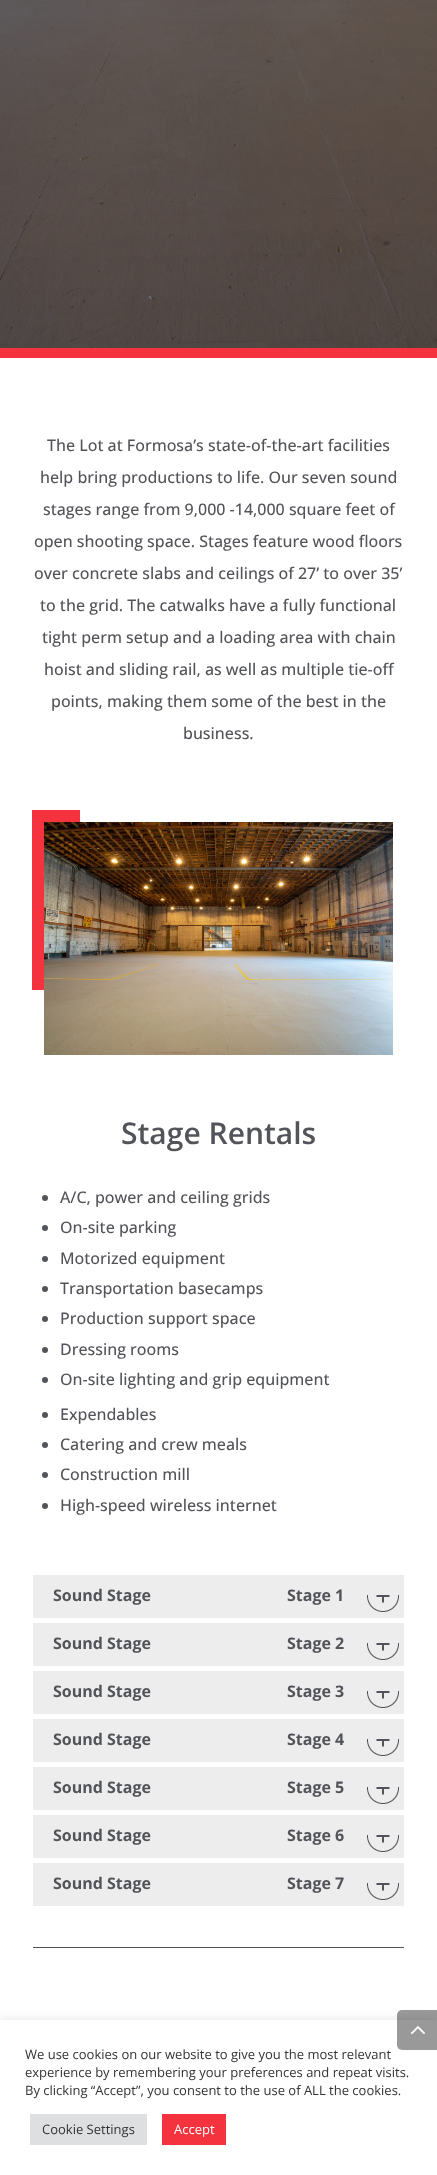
async function draw(canvas) {
	canvas.width = 437;
	canvas.height = 2175;
	const c = canvas.getContext('2d');
	c.miterLimit = 4;
	c.fontKerning = 'normal';
	async function loadImage(src) {
		const img = new Image();
		img.src = src;
		await img.decode();
		return img;
	}

	c.fillStyle = '#fff';
	c.fillRect(0, 0, 437, 2175);
	c.drawImage(await loadImage('img1.png'), 0, 0, 437, 348);
	c.fillStyle = '#f5333f';
	c.fillRect(0, 348, 437, 10);
	c.font = '500 16px Open Sans';
	c.fillStyle = '#535459';
	for (const [text, x, y] of [
		['The Lot at Formosa’s state-of-the-art facilities', 47, 451],
		['help bring productions to life. Our seven sound', 40, 483],
		['stages range from 9,000 -14,000 square feet of', 43, 515],
		['open shooting space. Stages feature wood floors', 34, 547],
		['over concrete slabs and ceilings of 27’ to over 35’', 34, 579],
		['to the grid. The catwalks have a fully functional', 40, 611],
		['tight perm setup and a loading area with chain', 42, 643],
		['hoist and sliding rail, as well as multiple tie-off', 44, 675],
		['points, making them some of the best in the', 51, 707],
		['business.', 183, 739],
	]) {
		c.fillText(text, x, y);
	}
	c.fillStyle = '#f5333f';
	c.fillRect(32, 810, 48, 180);
	c.drawImage(await loadImage('img2.png'), 44, 822, 349, 233);
	c.font = '600 30px Open Sans';
	c.fillStyle = '#535459';
	c.fillText('Stage Rentals', 121, 1144);
	c.beginPath();
	c.arc(45, 1198, 3, 0, 2 * Math.PI);
	c.fill();
	c.font = '500 16px Open Sans';
	c.fillText('A/C, power and ceiling grids', 60, 1203);
	c.beginPath();
	c.arc(45, 1228, 3, 0, 2 * Math.PI);
	c.fill();
	c.fillText('On-site parking', 60, 1233);
	c.beginPath();
	c.arc(45, 1259, 3, 0, 2 * Math.PI);
	c.fill();
	c.fillText('Motorized equipment', 60, 1264);
	c.beginPath();
	c.arc(45, 1289, 3, 0, 2 * Math.PI);
	c.fill();
	c.fillText('Transportation basecamps', 60, 1294);
	c.beginPath();
	c.arc(45, 1319, 3, 0, 2 * Math.PI);
	c.fill();
	c.fillText('Production support space', 60, 1324);
	c.beginPath();
	c.arc(45, 1350, 3, 0, 2 * Math.PI);
	c.fill();
	c.fillText('Dressing rooms', 60, 1355);
	c.beginPath();
	c.arc(45, 1380, 3, 0, 2 * Math.PI);
	c.fill();
	c.fillText('On-site lighting and grip equipment', 60, 1385);
	c.beginPath();
	c.arc(45, 1415, 3, 0, 2 * Math.PI);
	c.fill();
	c.fillText('Expendables', 60, 1420);
	c.beginPath();
	c.arc(45, 1445, 3, 0, 2 * Math.PI);
	c.fill();
	c.fillText('Catering and crew meals', 60, 1450);
	c.beginPath();
	c.arc(45, 1475, 3, 0, 2 * Math.PI);
	c.fill();
	c.fillText('Construction mill', 60, 1480);
	c.beginPath();
	c.arc(45, 1506, 3, 0, 2 * Math.PI);
	c.fill();
	c.fillText('High-speed wireless internet', 60, 1511);
	c.fillStyle = '#ededed';
	c.fillRect(33, 1575, 371, 43);
	c.font = 'bold 16px Open Sans';
	c.fillStyle = '#535459';
	c.fillText('Sound Stage', 53, 1601);
	c.fillText('Stage 1', 287, 1601);
	c.drawImage(await loadImage('img3.png'), 367, 1595, 32, 17);
	c.fillStyle = '#ededed';
	c.fillRect(33, 1623, 371, 43);
	c.fillStyle = '#535459';
	c.fillText('Sound Stage', 53, 1649);
	c.fillText('Stage 2', 287, 1649);
	c.drawImage(await loadImage('img3.png'), 367, 1643, 32, 17);
	c.fillStyle = '#ededed';
	c.fillRect(33, 1671, 371, 43);
	c.fillStyle = '#535459';
	c.fillText('Sound Stage', 53, 1697);
	c.fillText('Stage 3', 287, 1697);
	c.drawImage(await loadImage('img3.png'), 367, 1691, 32, 17);
	c.fillStyle = '#ededed';
	c.fillRect(33, 1719, 371, 43);
	c.fillStyle = '#535459';
	c.fillText('Sound Stage', 53, 1745);
	c.fillText('Stage 4', 287, 1745);
	c.drawImage(await loadImage('img3.png'), 367, 1739, 32, 17);
	c.fillStyle = '#ededed';
	c.fillRect(33, 1767, 371, 43);
	c.fillStyle = '#535459';
	c.fillText('Sound Stage', 53, 1793);
	c.fillText('Stage 5', 287, 1793);
	c.drawImage(await loadImage('img3.png'), 367, 1787, 32, 17);
	c.fillStyle = '#ededed';
	c.fillRect(33, 1815, 371, 43);
	c.fillStyle = '#535459';
	c.fillText('Sound Stage', 53, 1841);
	c.fillText('Stage 6', 287, 1841);
	c.drawImage(await loadImage('img3.png'), 367, 1835, 32, 17);
	c.fillStyle = '#ededed';
	c.fillRect(33, 1863, 371, 43);
	c.fillStyle = '#535459';
	c.fillText('Sound Stage', 53, 1889);
	c.fillText('Stage 7', 287, 1889);
	c.drawImage(await loadImage('img3.png'), 367, 1883, 32, 17);
	c.fillRect(33, 1947, 371, 1);
	c.fillStyle = '#acabab4d';
	c.filter = 'blur(5px)';
	c.beginPath();
	c.rect(0, 2019, 437, 155);
	c.fill();
	c.filter = 'none';
	c.fillStyle = '#fff';
	c.fillRect(0, 2020, 437, 155);
	c.fillStyle = '#00000066';
	c.beginPath();
	c.roundRect(397, 2010, 40, 40, [5, 0, 0, 5]);
	c.fill();
	c.drawImage(await loadImage('img4.png'), 411, 2026, 14, 8);
	c.font = '13px Open Sans';
	c.fillStyle = '#333';
	for (const [text, x, y] of [
		['We use cookies on our website to give you the most relevant', 25, 2059],
		['experience by remembering your preferences and repeat visits.', 25, 2077],
		['By clicking “Accept”, you consent to the use of ALL the cookies.', 25, 2095],
	]) {
		c.fillText(text, x, y);
	}
	c.fillStyle = '#dedfe0';
	c.fillRect(30, 2114, 117, 31);
	c.fillStyle = '#333';
	c.fillText('Cookie Settings', 42, 2134);
	c.fillStyle = '#f5333f';
	c.fillRect(162, 2114, 64, 31);
	c.fillStyle = '#fff';
	c.fillText('Accept', 174, 2134);
}

draw(document.querySelector('canvas'));
